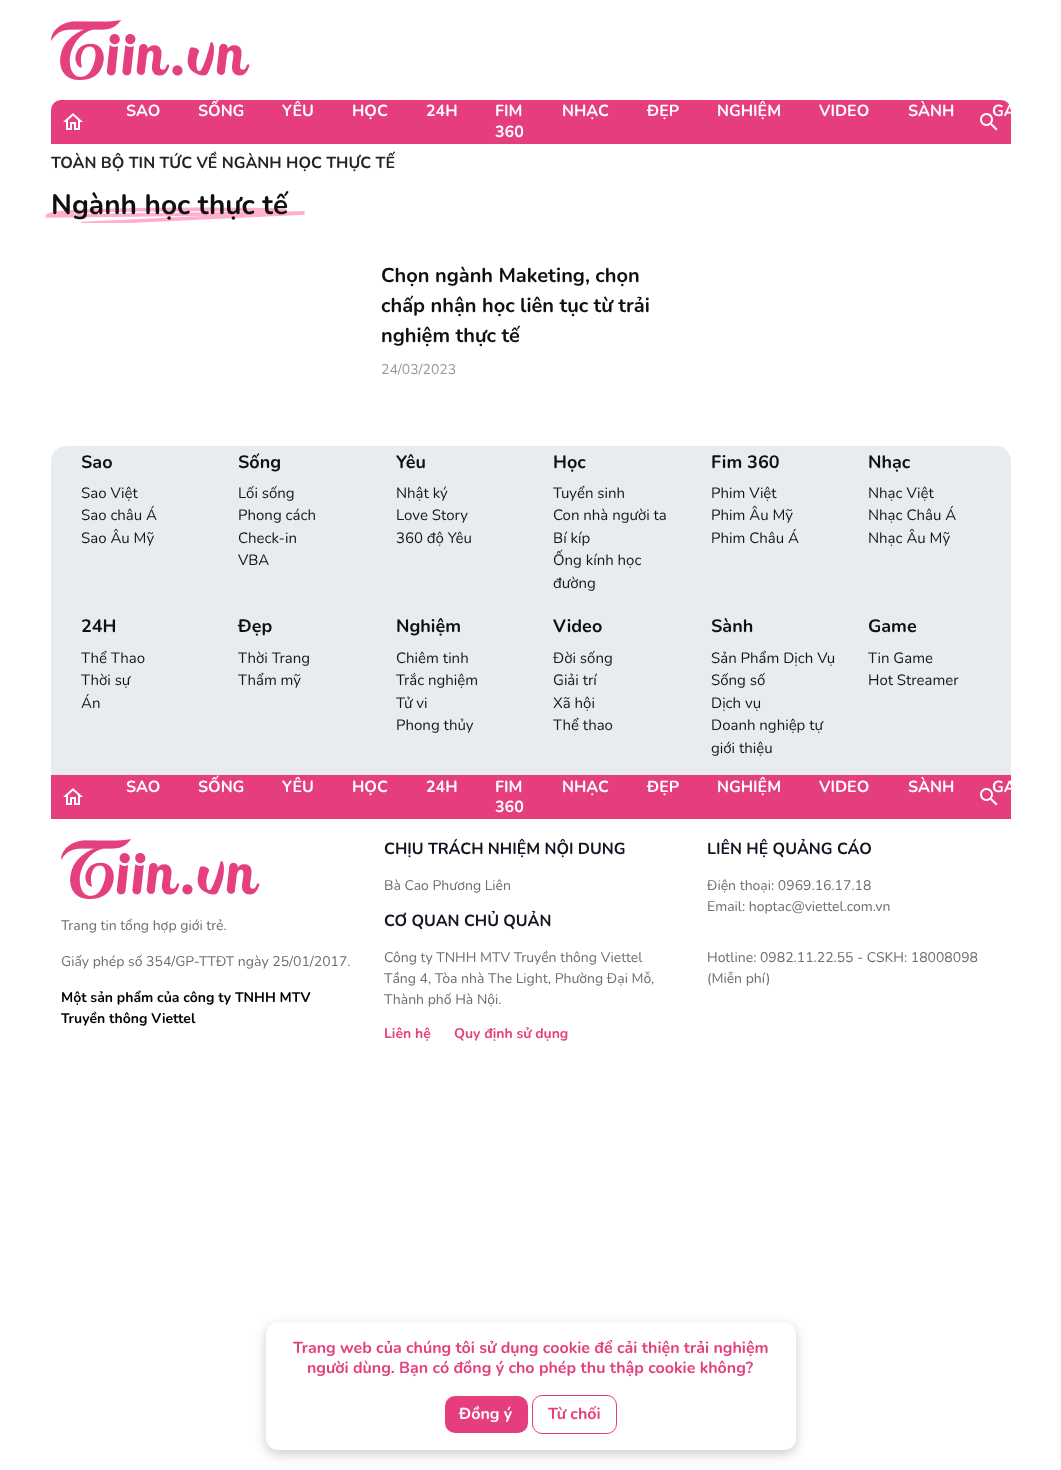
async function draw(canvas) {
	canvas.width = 1061;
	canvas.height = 1470;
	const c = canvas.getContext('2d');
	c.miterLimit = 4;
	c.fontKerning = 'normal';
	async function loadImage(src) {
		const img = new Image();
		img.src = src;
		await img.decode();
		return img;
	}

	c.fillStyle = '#fff';
	c.fillRect(0, 0, 1061, 1470);
	c.drawImage(await loadImage('img1.png'), 51, 20, 199, 60);
	c.fillStyle = '#e53d7e';
	c.beginPath();
	c.roundRect(51, 100, 960, 44, [10, 10, 0, 0]);
	c.fill();
	c.drawImage(await loadImage('img2.png'), 63, 113, 20, 17);
	c.font = 'bold 16px Nunito';
	c.fillStyle = '#fff';
	for (const [text, x, y] of [
		['SAO', 126, 116],
		['SỐNG', 198, 116],
		['YÊU', 282, 116],
		['HỌC', 352, 116],
		['24H', 426, 116],
		['FIM', 495, 116],
		['360', 495, 137],
		['NHẠC', 562, 116],
		['ĐẸP', 647, 116],
		['NGHIỆM', 717, 116],
		['VIDEO', 819, 116],
		['SÀNH', 908, 116],
		['GA', 992, 116],
	]) {
		c.fillText(text, x, y);
	}
	c.drawImage(await loadImage('img3.png'), 980, 113, 18, 18);
	c.fillStyle = '#212529';
	c.fillText('TOÀN BỘ TIN TỨC VỀ NGÀNH HỌC THỰC TẾ', 51, 168);
	c.save();
	c.beginPath();
	c.rect(45, 207, 260, 16);
	c.clip();
	c.beginPath();
	c.moveTo(286, 210);
	c.bezierCurveTo(206.5, 209, 47, 208.5, 47.5, 216);
	c.lineTo(304.5, 213);
	c.lineTo(81, 223.5);
	c.strokeStyle = '#ffaecd';
	c.lineWidth = 3.6;
	c.stroke();
	c.restore();
	c.font = 'bold 28px Nunito';
	c.fillStyle = '#101010';
	c.fillText('Ngành học thực tế', 51, 214);
	c.font = 'bold 20px Nunito';
	for (const [text, x, y] of [
		['Chọn ngành Maketing, chọn', 381, 282],
		['chấp nhận học liên tục từ trải', 381, 312],
		['nghiệm thực tế', 381, 342],
	]) {
		c.fillText(text, x, y);
	}
	c.font = '14px Nunito';
	c.fillStyle = '#979797';
	c.fillText('24/03/2023', 381, 374);
	c.fillStyle = '#e9ecef';
	c.beginPath();
	c.roundRect(51, 446, 960, 164, [15, 15, 0, 0]);
	c.fill();
	c.font = 'bold 18px Nunito';
	c.fillStyle = '#101010';
	c.fillText('Sao', 81, 468);
	c.font = '15px Nunito';
	c.fillStyle = '#111622';
	for (const [text, x, y] of [
		['Sao Việt', 81, 498],
		['Sao châu Á', 81, 520],
		['Sao Âu Mỹ', 81, 543],
	]) {
		c.fillText(text, x, y);
	}
	c.font = 'bold 18px Nunito';
	c.fillStyle = '#101010';
	c.fillText('Sống', 238, 468);
	c.font = '15px Nunito';
	c.fillStyle = '#111622';
	for (const [text, x, y] of [
		['Lối sống', 238, 498],
		['Phong cách', 238, 520],
		['Check-in', 238, 543],
		['VBA', 238, 565],
	]) {
		c.fillText(text, x, y);
	}
	c.font = 'bold 18px Nunito';
	c.fillStyle = '#101010';
	c.fillText('Yêu', 396, 468);
	c.font = '15px Nunito';
	c.fillStyle = '#111622';
	for (const [text, x, y] of [
		['Nhật ký', 396, 498],
		['Love Story', 396, 520],
		['360 độ Yêu', 396, 543],
	]) {
		c.fillText(text, x, y);
	}
	c.font = 'bold 18px Nunito';
	c.fillStyle = '#101010';
	c.fillText('Học', 553, 468);
	c.font = '15px Nunito';
	c.fillStyle = '#111622';
	for (const [text, x, y] of [
		['Tuyển sinh', 553, 498],
		['Con nhà người ta', 553, 520],
		['Bí kíp', 553, 543],
		['Ống kính học', 553, 565],
		['đường', 553, 588],
	]) {
		c.fillText(text, x, y);
	}
	c.font = 'bold 18px Nunito';
	c.fillStyle = '#101010';
	c.fillText('Fim 360', 711, 468);
	c.font = '15px Nunito';
	c.fillStyle = '#111622';
	for (const [text, x, y] of [
		['Phim Việt', 711, 498],
		['Phim Âu Mỹ', 711, 520],
		['Phim Châu Á', 711, 543],
	]) {
		c.fillText(text, x, y);
	}
	c.font = 'bold 18px Nunito';
	c.fillStyle = '#101010';
	c.fillText('Nhạc', 868, 468);
	c.font = '15px Nunito';
	c.fillStyle = '#111622';
	for (const [text, x, y] of [
		['Nhạc Việt', 868, 498],
		['Nhạc Châu Á', 868, 520],
		['Nhạc Âu Mỹ', 868, 543],
	]) {
		c.fillText(text, x, y);
	}
	c.fillStyle = '#e9ecef';
	c.fillRect(51, 610, 960, 165);
	c.font = 'bold 18px Nunito';
	c.fillStyle = '#101010';
	c.fillText('24H', 81, 632);
	c.font = '15px Nunito';
	c.fillStyle = '#111622';
	for (const [text, x, y] of [
		['Thể Thao', 81, 663],
		['Thời sự', 81, 685],
		['Án', 81, 708],
	]) {
		c.fillText(text, x, y);
	}
	c.font = 'bold 18px Nunito';
	c.fillStyle = '#101010';
	c.fillText('Đẹp', 238, 632);
	c.font = '15px Nunito';
	c.fillStyle = '#111622';
	c.fillText('Thời Trang', 238, 663);
	c.fillText('Thẩm mỹ', 238, 685);
	c.font = 'bold 18px Nunito';
	c.fillStyle = '#101010';
	c.fillText('Nghiệm', 396, 632);
	c.font = '15px Nunito';
	c.fillStyle = '#111622';
	for (const [text, x, y] of [
		['Chiêm tinh', 396, 663],
		['Trắc nghiệm', 396, 685],
		['Tử vi', 396, 708],
		['Phong thủy', 396, 730],
	]) {
		c.fillText(text, x, y);
	}
	c.font = 'bold 18px Nunito';
	c.fillStyle = '#101010';
	c.fillText('Video', 553, 632);
	c.font = '15px Nunito';
	c.fillStyle = '#111622';
	for (const [text, x, y] of [
		['Đời sống', 553, 663],
		['Giải trí', 553, 685],
		['Xã hội', 553, 708],
		['Thể thao', 553, 730],
	]) {
		c.fillText(text, x, y);
	}
	c.font = 'bold 18px Nunito';
	c.fillStyle = '#101010';
	c.fillText('Sành', 711, 632);
	c.font = '15px Nunito';
	c.fillStyle = '#111622';
	for (const [text, x, y] of [
		['Sản Phẩm Dịch Vụ', 711, 663],
		['Sống số', 711, 685],
		['Dịch vụ', 711, 708],
		['Doanh nghiệp tự', 711, 730],
		['giới thiệu', 711, 753],
	]) {
		c.fillText(text, x, y);
	}
	c.font = 'bold 18px Nunito';
	c.fillStyle = '#101010';
	c.fillText('Game', 868, 632);
	c.font = '15px Nunito';
	c.fillStyle = '#111622';
	c.fillText('Tin Game', 868, 663);
	c.fillText('Hot Streamer', 868, 685);
	c.fillStyle = '#e53d7e';
	c.fillRect(51, 775, 960, 44);
	c.drawImage(await loadImage('img2.png'), 63, 788, 20, 17);
	c.font = 'bold 16px Nunito';
	c.fillStyle = '#fff';
	for (const [text, x, y] of [
		['SAO', 126, 792],
		['SỐNG', 198, 792],
		['YÊU', 282, 792],
		['HỌC', 352, 792],
		['24H', 426, 792],
		['FIM', 495, 792],
		['360', 495, 812],
		['NHẠC', 562, 792],
		['ĐẸP', 647, 792],
		['NGHIỆM', 717, 792],
		['VIDEO', 819, 792],
		['SÀNH', 908, 792],
		['GA', 992, 792],
	]) {
		c.fillText(text, x, y);
	}
	c.drawImage(await loadImage('img4.png'), 980, 788, 18, 18);
	c.drawImage(await loadImage('img1.png'), 61, 839, 199, 60);
	c.font = '14px Nunito';
	c.fillStyle = '#6d6e72';
	c.fillText('Trang tin tổng hợp giới trẻ.', 61, 930);
	c.fillText('Giấy phép số 354/GP-TTĐT ngày 25/01/2017.', 61, 966);
	c.font = 'bold 14px Nunito';
	c.fillStyle = '#000';
	c.fillText('Một sản phẩm của công ty TNHH MTV', 61, 1002);
	c.fillText('Truyền thông Viettel', 61, 1023);
	c.font = 'bold 16px Nunito';
	c.fillStyle = '#111622';
	c.fillText('CHỊU TRÁCH NHIỆM NỘI DUNG', 384, 854);
	c.font = '14px Nunito';
	c.fillStyle = '#6d6e72';
	c.fillText('Bà Cao Phương Liên', 384, 890);
	c.font = 'bold 16px Nunito';
	c.fillStyle = '#111622';
	c.fillText('CƠ QUAN CHỦ QUẢN', 384, 926);
	c.font = '14px Nunito';
	c.fillStyle = '#6d6e72';
	for (const [text, x, y] of [
		['Công ty TNHH MTV Truyền thông Viettel', 384, 962],
		['Tầng 4, Tòa nhà The Light, Phường Đại Mỗ,', 384, 983],
		['Thành phố Hà Nội.', 384, 1004],
	]) {
		c.fillText(text, x, y);
	}
	c.font = 'bold 14px Nunito';
	c.fillStyle = '#e43f7e';
	c.fillText('Liên hệ', 384, 1038);
	c.fillText('Quy định sử dụng', 454, 1038);
	c.font = 'bold 16px Nunito';
	c.fillStyle = '#111622';
	c.fillText('LIÊN HỆ QUẢNG CÁO', 707, 854);
	c.font = '14px Nunito';
	c.fillStyle = '#6d6e72';
	for (const [text, x, y] of [
		['Điện thoại: 0969.16.17.18', 707, 890],
		['Email: hoptac@viettel.com.vn', 707, 911],
		['Hotline: 0982.11.22.55 - CSKH: 18008098', 707, 962],
		['(Miễn phí)', 707, 983],
	]) {
		c.fillText(text, x, y);
	}
	c.fillStyle = '#00000033';
	c.filter = 'blur(6px)';
	c.beginPath();
	c.roundRect(266, 1326, 530, 128, 12);
	c.fill();
	c.filter = 'none';
	c.fillStyle = '#fff';
	c.beginPath();
	c.roundRect(266, 1322, 530, 128, 12);
	c.fill();
	c.font = 'bold 16px Nunito';
	c.fillStyle = '#e43f7e';
	c.fillText('Trang web của chúng tôi sử dụng cookie để cải thiện trải nghiệm', 293, 1353);
	c.fillText('người dùng. Bạn có đồng ý cho phép thu thập cookie không?', 307, 1373);
	c.fillStyle = '#e53d7e';
	c.beginPath();
	c.roundRect(445, 1396, 83, 37, 10);
	c.fill();
	c.fillStyle = '#fff';
	c.fillText('Đồng ý', 459, 1419);
	c.beginPath();
	c.roundRect(532.5, 1395.5, 84, 38, 9.5);
	c.strokeStyle = '#e53d7e';
	c.stroke();
	c.fillStyle = '#e43f7e';
	c.fillText('Từ chối', 548, 1419);
}

draw(document.querySelector('canvas'));
